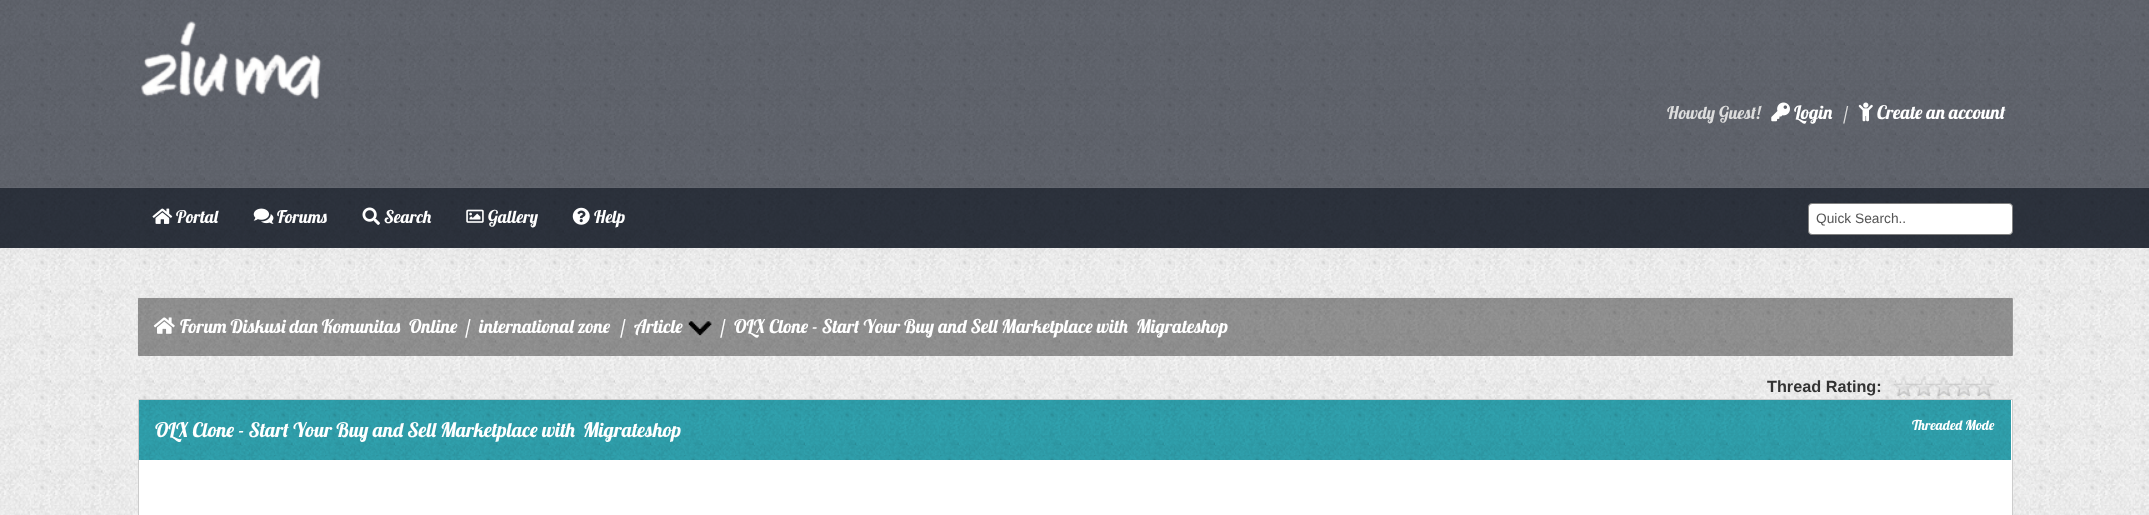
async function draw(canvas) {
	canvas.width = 2149;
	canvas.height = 515;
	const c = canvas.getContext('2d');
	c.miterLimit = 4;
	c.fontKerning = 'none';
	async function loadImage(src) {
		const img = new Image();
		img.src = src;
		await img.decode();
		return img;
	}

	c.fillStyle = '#2f3540';
	c.fillRect(0, 0, 2149, 515);
	c.fillStyle = '#666a73';
	c.fillRect(0, 0, 2149, 188);
	c.drawImage(await loadImage('img1.png'), 0, 0, 2149, 188);
	c.drawImage(await loadImage('img2.png'), 141, 21, 181, 79);
	c.font = '17.5px Lobster';
	c.fillStyle = '#ddd';
	c.fillText('Howdy Guest!', 1667, 119);
	c.drawImage(await loadImage('img3.png'), 1771, 102, 19, 20);
	c.font = '18.75px Lobster';
	c.fillStyle = '#fff';
	c.fillText('Login', 1794, 119);
	c.font = '17.5px Lobster';
	c.fillStyle = '#ddd';
	c.fillText('/', 1843, 119);
	c.drawImage(await loadImage('img4.png'), 1858, 102, 15, 20);
	c.font = '18.75px Lobster';
	c.fillStyle = '#fff';
	c.fillText('Create an account', 1877, 119);
	c.drawImage(await loadImage('img5.png'), 0, 188, 2149, 60);
	c.drawImage(await loadImage('img6.png'), 152, 208, 21, 16);
	c.font = '17.5px Lobster';
	c.fillText('Portal', 176, 223);
	c.drawImage(await loadImage('img7.png'), 253, 208, 21, 16);
	c.fillText('Forums', 277, 223);
	c.drawImage(await loadImage('img8.png'), 362, 207, 18, 18);
	c.fillText('Search', 384, 223);
	c.drawImage(await loadImage('img9.png'), 466, 209, 18, 14);
	c.fillText('Gallery', 488, 223);
	c.drawImage(await loadImage('img10.png'), 572, 207, 18, 18);
	c.fillText('Help', 594, 223);
	c.beginPath();
	c.roundRect(1808.5, 203.5, 204, 31, 3.5);
	c.fill();
	c.strokeStyle = '#808080';
	c.stroke();
	c.font = '13.75px Liberation Sans';
	c.fillStyle = '#555';
	c.fillText('Quick Search..', 1816, 223);
	c.fillStyle = '#fcfcfc';
	c.fillRect(0, 248, 2149, 267);
	c.drawImage(await loadImage('img11.png'), 0, 248, 2149, 267);
	c.fillStyle = '#999';
	c.beginPath();
	c.roundRect(138, 298, 1875, 58, 1);
	c.fill();
	c.drawImage(await loadImage('img12.png'), 137, 297, 1875, 59);
	c.drawImage(await loadImage('img13.png'), 153, 317, 22, 17);
	c.font = '18.75px Lobster';
	c.fillStyle = '#fff';
	for (const [text, x, y] of [
		['Forum Diskusi dan Komunitas', 180, 333],
		['Online', 409, 333],
		['/', 465, 333],
		['international zone', 479, 333],
		['/', 620, 333],
		['Article', 634, 333],
	]) {
		c.fillText(text, x, y);
	}
	c.drawImage(await loadImage('img14.png'), 687, 320, 25, 16);
	c.fillText('/', 720, 333);
	c.fillText('OLX Clone - Start Your Buy and Sell Marketplace with', 734, 333);
	c.fillText('Migrateshop', 1136, 333);
	c.font = 'bold 16.25px Liberation Sans';
	c.fillStyle = '#333';
	c.fillText('Thread Rating:', 1767, 392);
	c.drawImage(await loadImage('img15.png'), 1893, 376, 101, 21);
	c.fillStyle = '#fff';
	c.beginPath();
	c.rect(138.5, 399.5, 1874, 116);
	c.fill();
	c.strokeStyle = '#ccc';
	c.stroke();
	c.fillStyle = '#32a8b5';
	c.fillRect(139, 400, 1872, 60);
	c.drawImage(await loadImage('img16.png'), 138, 400, 1873, 60);
	c.font = '20px Lobster';
	c.fillStyle = '#fff';
	c.fillText('OLX Clone - Start Your Buy and Sell Marketplace with', 155, 437);
	c.fillText('Migrateshop', 583, 437);
	c.font = '13.75px Lobster';
	c.fillText('Threaded Mode', 1912, 430);
}

draw(document.querySelector('canvas'));
